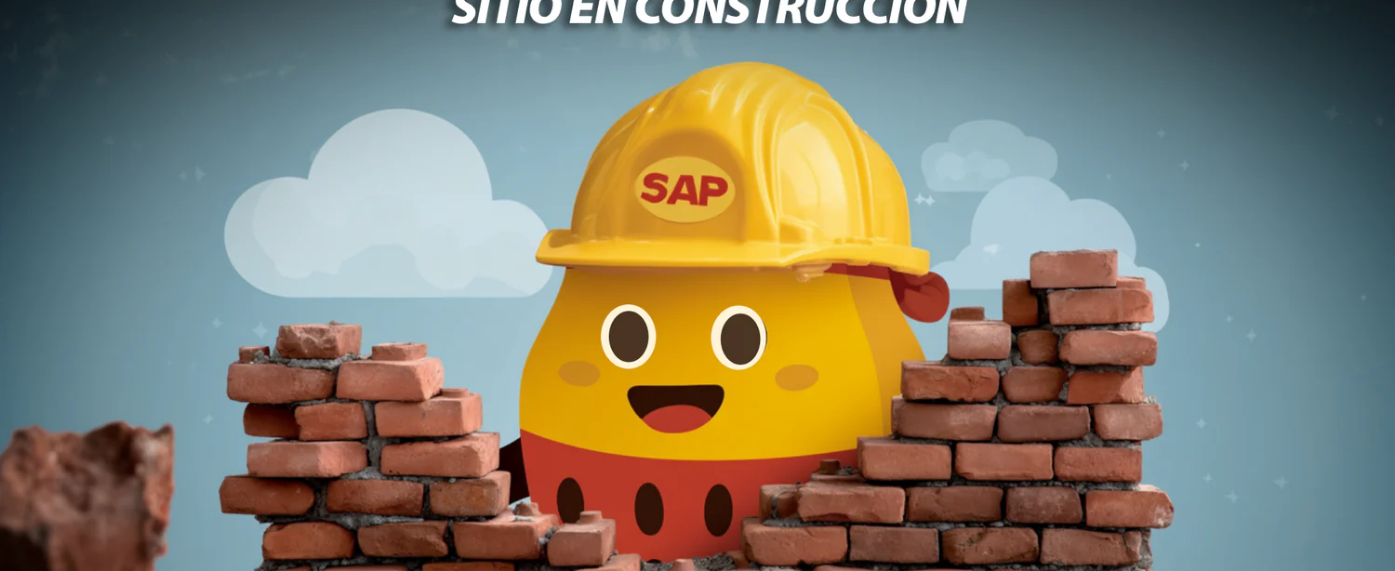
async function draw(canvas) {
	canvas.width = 1395;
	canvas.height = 571;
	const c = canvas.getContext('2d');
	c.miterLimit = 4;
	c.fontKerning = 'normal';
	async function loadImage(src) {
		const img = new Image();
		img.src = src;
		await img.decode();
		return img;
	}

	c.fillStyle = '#fff';
	c.fillRect(0, 0, 1395, 571);
	c.drawImage(await loadImage('img1.png'), 0, 0, 1395, 571);
}

draw(document.querySelector('canvas'));
